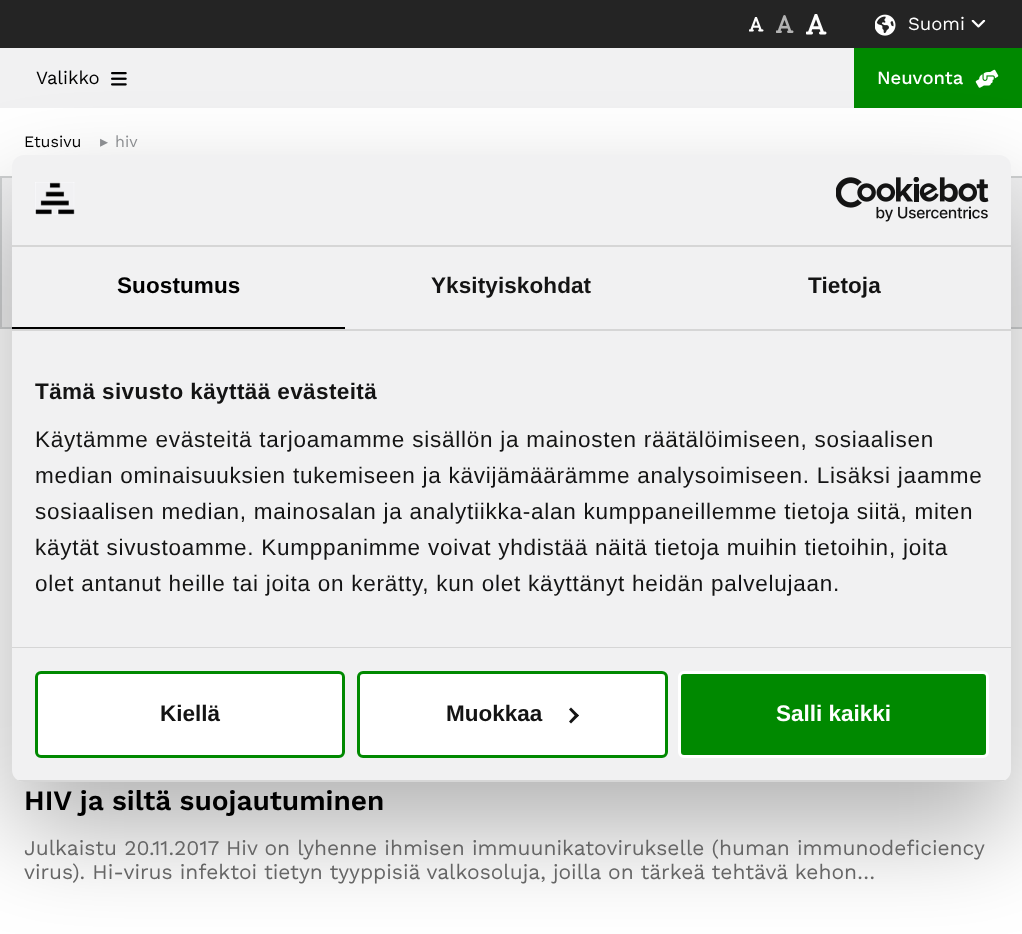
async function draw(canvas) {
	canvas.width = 1022;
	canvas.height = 934;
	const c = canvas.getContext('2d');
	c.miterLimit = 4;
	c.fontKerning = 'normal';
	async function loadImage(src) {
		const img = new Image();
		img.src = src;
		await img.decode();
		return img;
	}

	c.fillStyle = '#fff';
	c.fillRect(0, 0, 1022, 934);
	c.fillStyle = '#242424';
	c.fillRect(0, 0, 1022, 48);
	c.drawImage(await loadImage('img1.png'), 749, 17, 15, 15);
	c.drawImage(await loadImage('img2.png'), 776, 15, 18, 18);
	c.drawImage(await loadImage('img3.png'), 806, 14, 21, 21);
	c.drawImage(await loadImage('img4.png'), 875, 14, 21, 22);
	c.font = '18.5px Work Sans';
	c.fillStyle = '#fff';
	c.fillText('Suomi', 908, 30);
	c.drawImage(await loadImage('img5.png'), 971, 20, 15, 8);
	c.fillStyle = '#f1f1f2';
	c.fillRect(0, 48, 854, 60);
	c.fillStyle = '#000';
	c.fillText('Valikko', 36, 84);
	c.drawImage(await loadImage('img6.png'), 111, 72, 16, 14);
	c.fillStyle = '#008900';
	c.fillRect(854, 48, 168, 60);
	c.font = '500 18.5px Work Sans';
	c.fillStyle = '#fff';
	c.fillText('Neuvonta', 877, 84);
	c.drawImage(await loadImage('img7.png'), 975, 69, 24, 19);
	c.font = '16px Work Sans';
	c.fillStyle = '#000';
	c.fillText('Etusivu', 24, 147);
	c.font = '16px DejaVu Sans';
	c.fillStyle = '#919396';
	c.fillText('▸', 100, 147);
	c.font = '16px Work Sans';
	c.fillText('hiv', 115, 147);
	for (const [x, y, w, h, color] of [
		[2, 178, 1020, 149, '#f1f1f2'],
		[0, 176, 1022, 2, '#cfd1d2'],
		[0, 327, 1022, 2, '#cfd1d2'],
		[0, 177, 2, 150, '#cfd1d2'],
	]) {
		c.fillStyle = color;
		c.fillRect(x, y, w, h);
	}
	c.fillStyle = '#0000004d';
	c.filter = 'blur(51px)';
	c.beginPath();
	c.roundRect(12, 203, 999, 627, 12);
	c.fill();
	c.filter = 'none';
	c.fillStyle = '#f1f1f2';
	c.beginPath();
	c.roundRect(12, 155, 999, 627, 12);
	c.fill();
	c.fillStyle = '#d6d6d6';
	c.fillRect(12, 245, 999, 2);
	c.drawImage(await loadImage('img8.png'), 34, 182, 41, 33);
	c.drawImage(await loadImage('img9.png'), 836, 177, 153, 45);
	c.fillRect(12, 329, 999, 2);
	c.fillStyle = '#000';
	c.fillRect(12, 327, 333, 2);
	c.letterSpacing = '0.1px';
	c.font = 'bold 22.5px Liberation Sans';
	c.fillText('Suostumus', 117, 293);
	c.fillStyle = '#141414';
	c.fillText('Yksityiskohdat', 431, 293);
	c.fillText('Tietoja', 808, 293);
	c.fillStyle = '#d6d6d6';
	c.fillRect(12, 647, 999, 1);
	c.letterSpacing = '0.4px';
	c.fillStyle = '#141414';
	c.fillText('Tämä sivusto käyttää evästeitä', 35, 399);
	c.letterSpacing = '0.75px';
	c.font = '22.5px Liberation Sans';
	for (const [text, x, y] of [
		['Käytämme evästeitä tarjoamamme sisällön ja mainosten räätälöimiseen, sosiaalisen', 35, 447],
		['median ominaisuuksien tukemiseen ja kävijämäärämme analysoimiseen. Lisäksi jaamme', 35, 483],
		['sosiaalisen median, mainosalan ja analytiikka-alan kumppaneillemme tietoja siitä, miten', 35, 519],
		['käytät sivustoamme. Kumppanimme voivat yhdistää näitä tietoja muihin tietoihin, joita', 35, 555],
		['olet antanut heille tai joita on kerätty, kun olet käyttänyt heidän palvelujaan.', 35, 591],
	]) {
		c.fillText(text, x, y);
	}
	c.save();
	c.beginPath();
	c.roundRect(12, 155, 999, 627, 12);
	c.clip();
	c.fillStyle = '#d6d6d6';
	c.fillRect(12, 780, 999, 2);
	c.restore();
	c.fillStyle = '#fff';
	c.beginPath();
	c.roundRect(36.5, 672.5, 307, 84, 4.5);
	c.fill();
	c.strokeStyle = '#008900';
	c.lineWidth = 3;
	c.stroke();
	c.letterSpacing = '0px';
	c.font = 'bold 22.5px Liberation Sans';
	c.fillStyle = '#141414';
	c.fillText('Kiellä', 160, 721);
	c.fillStyle = '#fff';
	c.beginPath();
	c.roundRect(358.5, 672.5, 308, 84, 4.5);
	c.fill();
	c.stroke();
	c.fillStyle = '#141414';
	c.fillText('Muokkaa', 446, 721);
	c.beginPath();
	c.moveTo(571, 707.5);
	c.lineTo(579, 715.5);
	c.lineTo(576.5, 717.5);
	c.lineTo(569, 709.5);
	c.closePath();
	c.fill();
	c.beginPath();
	c.moveTo(576.5, 713.5);
	c.lineTo(579, 715.5);
	c.lineTo(571, 723.5);
	c.lineTo(569, 721.5);
	c.closePath();
	c.fill();
	c.fillStyle = '#008900';
	c.beginPath();
	c.roundRect(679.5, 672.5, 308, 84, 4.5);
	c.fill();
	c.strokeStyle = '#fff';
	c.stroke();
	c.fillStyle = '#fff';
	c.fillText('Salli kaikki', 776, 721);
	c.font = '600 28px Work Sans';
	c.fillStyle = '#000';
	c.fillText('HIV ja siltä suojautuminen', 24, 810);
	c.font = '21px Work Sans';
	c.fillStyle = '#666';
	c.fillText('Julkaistu 20.11.2017 Hiv on lyhenne ihmisen immuunikatovirukselle (human immunodeficiency', 24, 855);
	c.fillText('virus). Hi-virus infektoi tietyn tyyppisiä valkosoluja, joilla on tärkeä tehtävä kehon…', 24, 879);
}

draw(document.querySelector('canvas'));
